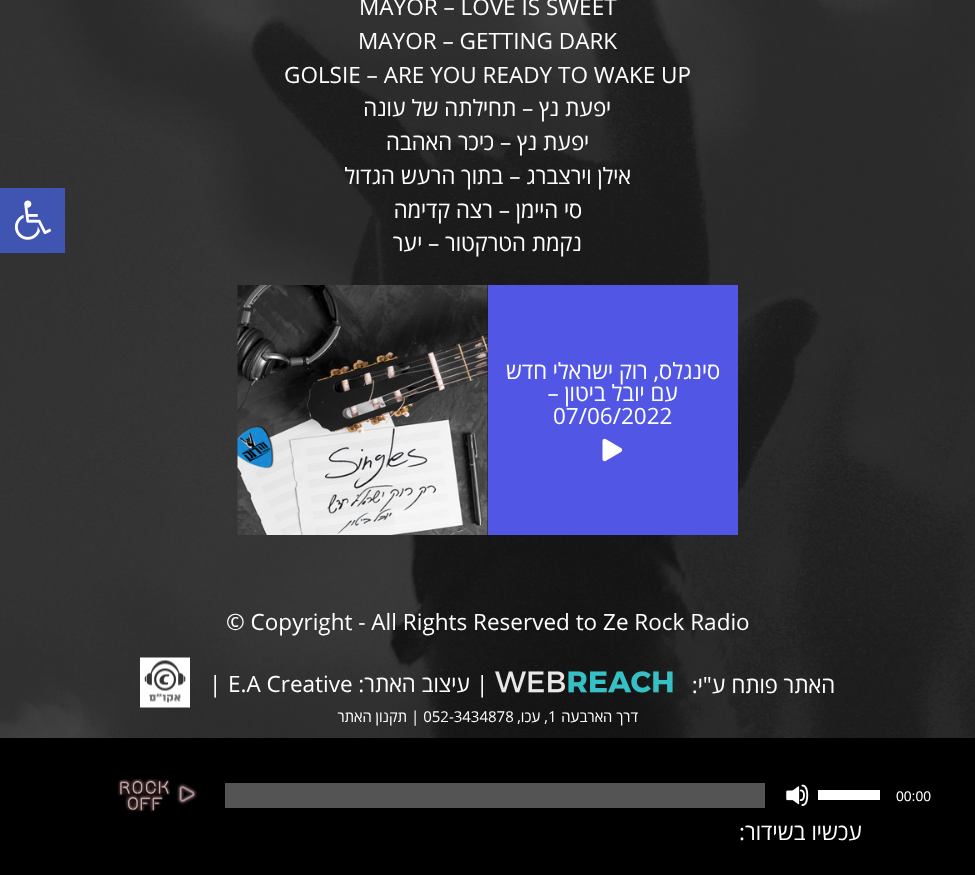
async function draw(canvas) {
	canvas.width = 975;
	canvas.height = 875;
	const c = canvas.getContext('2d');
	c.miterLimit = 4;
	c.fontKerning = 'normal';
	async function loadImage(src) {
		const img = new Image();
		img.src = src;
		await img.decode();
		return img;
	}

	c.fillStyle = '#fff';
	c.fillRect(0, 0, 975, 875);
	c.drawImage(await loadImage('img1.png'), 0, 0, 975, 738);
	c.font = '22.5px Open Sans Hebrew';
	for (const [text, x, y] of [
		['MAYOR – LOVE IS SWEET', 359, 15],
		['MAYOR – GETTING DARK', 358, 49],
		['GOLSIE – ARE YOU READY TO WAKE UP', 284, 83],
	]) {
		c.fillText(text, x, y);
	}
	c.direction = 'rtl';
	for (const [text, x, y] of [
		['יפעת נץ – תחילתה של עונה', 611, 116],
		['יפעת נץ – כיכר האהבה', 589, 150],
		['אילן וירצברג – בתוך הרעש הגדול', 631, 184],
		['סי היימן – רצה קדימה', 582, 218],
		['נקמת הטרקטור – יער', 582, 251],
	]) {
		c.fillText(text, x, y);
	}
	c.fillStyle = '#5157e4';
	c.fillRect(488, 285, 250, 250);
	c.fillStyle = '#fff';
	c.fillText('סינגלס, רוק ישראלי חדש', 720, 379);
	c.fillText('עם יובל ביטון –', 678, 401);
	c.direction = 'ltr';
	c.fillText('07/06/2022', 553, 424);
	c.drawImage(await loadImage('img2.png'), 602, 438, 21, 24);
	c.drawImage(await loadImage('img3.png'), 237, 285, 251, 250);
	c.fillStyle = '#4054b2';
	c.fillRect(0, 188, 65, 65);
	c.drawImage(await loadImage('img4.png'), 14, 200, 38, 40);
	c.fillStyle = '#fff';
	c.fillText('© Copyright - All Rights Reserved to Ze Rock Radio', 226, 630);
	c.direction = 'rtl';
	c.fillText('האתר פותח ע"י:', 835, 693);
	c.drawImage(await loadImage('img5.png'), 495, 671, 178, 22);
	c.direction = 'ltr';
	c.fillText('|', 476, 692);
	c.direction = 'rtl';
	c.fillText('עיצוב האתר:', 470, 692);
	c.direction = 'ltr';
	c.fillText('E.A Creative', 228, 692);
	c.fillText('|', 209, 692);
	c.drawImage(await loadImage('img6.png'), 140, 657, 50, 51);
	c.direction = 'rtl';
	c.font = '15px Open Sans Hebrew';
	c.fillText('דרך הארבעה', 638, 722);
	c.direction = 'ltr';
	c.fillText('1', 548, 722);
	c.direction = 'rtl';
	c.fillText(', עכו,', 548, 722);
	c.direction = 'ltr';
	c.fillText('| 052-3434878', 411, 722);
	c.direction = 'rtl';
	c.fillText('תקנון האתר', 407, 722);
	c.fillStyle = '#000';
	c.fillRect(0, 738, 975, 137);
	c.direction = 'ltr';
	c.font = '14px Liberation Sans';
	c.fillStyle = '#fff';
	c.fillText('00:00', 896, 801);
	c.fillRect(818, 790, 62, 10);
	c.drawImage(await loadImage('img7.png'), 786, 784, 23, 22);
	c.fillStyle = '#545454';
	c.fillRect(225, 783, 540, 25);
	c.drawImage(await loadImage('img8.png'), 118, 779, 79, 33);
	c.direction = 'rtl';
	c.font = '22.5px Open Sans Hebrew';
	c.fillStyle = '#fff';
	c.fillText('עכשיו בשידור:', 862, 840);
}

draw(document.querySelector('canvas'));
